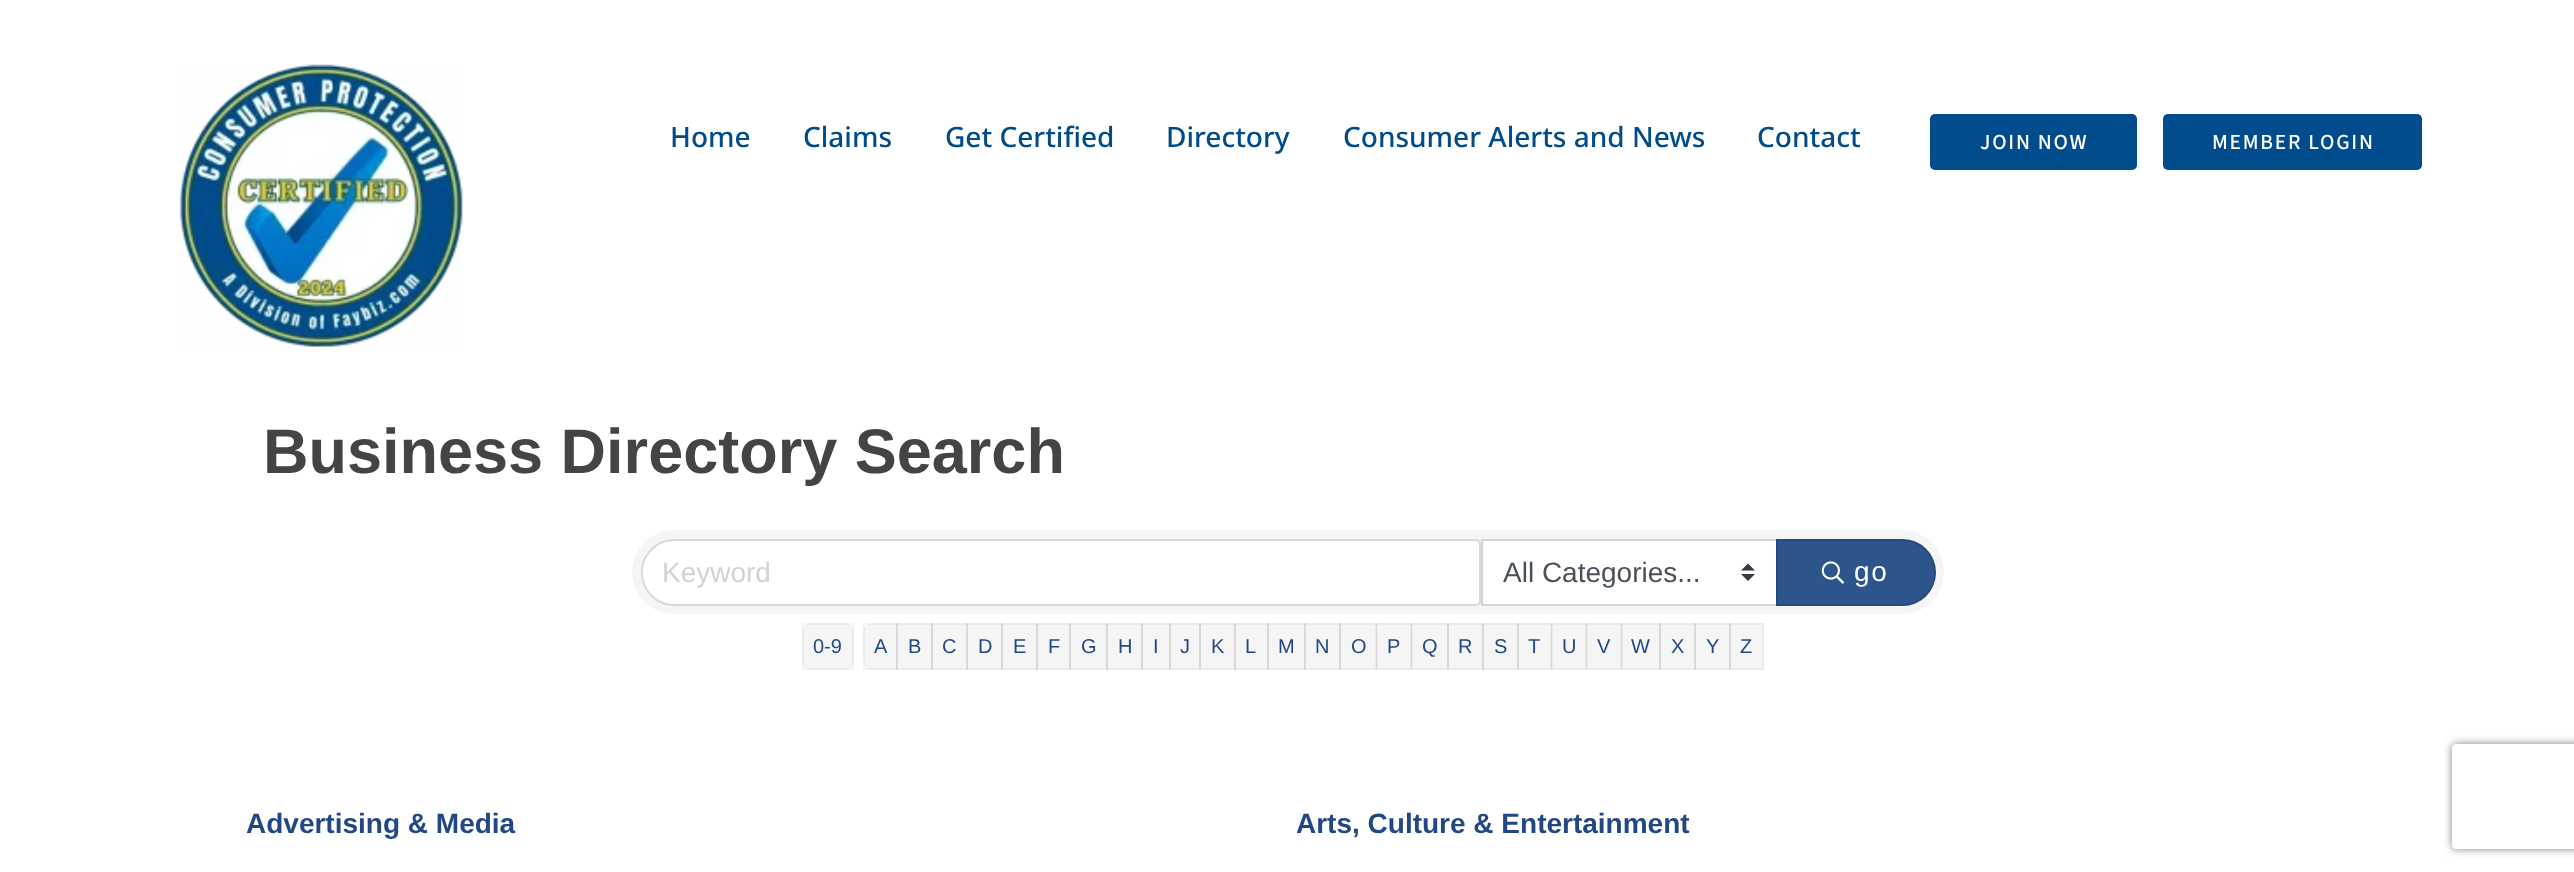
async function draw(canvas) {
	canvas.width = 2574;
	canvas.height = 872;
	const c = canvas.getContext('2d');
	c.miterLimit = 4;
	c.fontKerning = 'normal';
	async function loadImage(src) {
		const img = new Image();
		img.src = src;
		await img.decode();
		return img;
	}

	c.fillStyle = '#fff';
	c.fillRect(0, 0, 2574, 872);
	c.drawImage(await loadImage('img1.png'), 179, 64, 284, 283);
	c.font = '500 28px Noto Sans';
	c.fillStyle = '#004c8a';
	for (const [text, x, y] of [
		['Home', 670, 147],
		['Claims', 803, 147],
		['Get Certified', 945, 147],
		['Directory', 1166, 147],
		['Consumer Alerts and News', 1343, 147],
		['Contact', 1757, 147],
	]) {
		c.fillText(text, x, y);
	}
	c.fillStyle = '#004c8c';
	c.beginPath();
	c.roundRect(1930, 114, 207, 56, 5);
	c.fill();
	c.letterSpacing = '1.75px';
	c.font = '500 21.5px "Source Sans 3"';
	c.fillStyle = '#fff';
	c.fillText('JOIN NOW', 1980, 149);
	c.fillStyle = '#004c8c';
	c.beginPath();
	c.roundRect(2163, 114, 259, 56, 5);
	c.fill();
	c.fillStyle = '#fff';
	c.fillText('MEMBER LOGIN', 2212, 149);
	c.letterSpacing = '0px';
	c.font = 'bold 63px Liberation Sans';
	c.fillStyle = '#444';
	c.fillText('Business Directory Search', 263, 473);
	c.fillStyle = '#f5f5f5';
	c.beginPath();
	c.roundRect(632, 530, 1312, 84, 42);
	c.fill();
	c.fillStyle = '#fff';
	c.beginPath();
	c.roundRect(642, 541, 837, 63, [31.5, 4, 4, 31.5]);
	c.fill();
	c.beginPath();
	c.roundRect(642, 540, 838, 65, [32.5, 4, 4, 32.5]);
	c.strokeStyle = '#0000001f';
	c.lineWidth = 2;
	c.stroke();
	c.font = '28px Liberation Sans';
	c.fillStyle = '#d2d2d2';
	c.fillText('Keyword', 662, 582);
	c.fillStyle = '#fff';
	c.fillRect(1483, 541, 293, 63);
	c.fillStyle = '#343a40';
	c.beginPath();
	c.moveTo(1748, 563.5);
	c.lineTo(1741, 570.5);
	c.lineTo(1755, 570.5);
	c.closePath();
	c.moveTo(1748, 581);
	c.lineTo(1741, 574);
	c.lineTo(1755, 574);
	c.closePath();
	c.fill();
	c.strokeStyle = '#ced4da';
	c.strokeRect(1482, 540, 295, 65);
	c.fillStyle = '#495057';
	c.fillText('All Categories...', 1503, 582);
	c.fillStyle = '#2d548b';
	c.beginPath();
	c.roundRect(1776, 539, 160, 67, [0, 33.5, 33.5, 0]);
	c.fill();
	c.beginPath();
	c.roundRect(1777, 540, 158, 65, [0, 32.5, 32.5, 0]);
	c.strokeStyle = '#0000001f';
	c.stroke();
	c.drawImage(await loadImage('img2.png'), 1821, 561, 24, 23);
	c.letterSpacing = '1.75px';
	c.fillStyle = '#fff';
	c.fillText('go', 1854, 581);
	c.fillStyle = '#f5f5f5';
	c.beginPath();
	c.roundRect(802, 623, 52, 47, 9);
	c.fill();
	c.strokeStyle = '#0000000a';
	c.strokeRect(803, 624, 50, 45);
	c.letterSpacing = '0px';
	c.font = '20px Liberation Sans';
	c.fillStyle = '#224884';
	c.fillText('0-9', 813, 653);
	c.fillStyle = '#f5f5f5';
	c.beginPath();
	c.roundRect(863, 623, 35, 47, [9, 0, 0, 9]);
	c.fill();
	c.strokeRect(864, 624, 33, 45);
	c.fillStyle = '#224884';
	c.fillText('A', 874, 653);
	c.fillStyle = '#0000000a';
	c.fillRect(896, 623, 37, 47);
	c.strokeRect(897, 624, 35, 45);
	c.fillStyle = '#224884';
	c.fillText('B', 908, 653);
	c.fillStyle = '#0000000a';
	c.fillRect(931, 623, 37, 47);
	c.strokeRect(932, 624, 35, 45);
	c.fillStyle = '#224884';
	c.fillText('C', 942, 653);
	c.fillStyle = '#0000000a';
	c.fillRect(966, 623, 37, 47);
	c.strokeRect(967, 624, 35, 45);
	c.fillStyle = '#224884';
	c.fillText('D', 978, 653);
	c.fillStyle = '#0000000a';
	c.fillRect(1001, 623, 37, 47);
	c.strokeRect(1002, 624, 35, 45);
	c.fillStyle = '#224884';
	c.fillText('E', 1013, 653);
	c.fillStyle = '#0000000a';
	c.fillRect(1036, 623, 35, 47);
	c.strokeRect(1037, 624, 33, 45);
	c.fillStyle = '#224884';
	c.fillText('F', 1048, 653);
	c.fillStyle = '#0000000a';
	c.fillRect(1069, 623, 39, 47);
	c.strokeRect(1070, 624, 37, 45);
	c.fillStyle = '#224884';
	c.fillText('G', 1081, 653);
	c.fillStyle = '#0000000a';
	c.fillRect(1106, 623, 37, 47);
	c.strokeRect(1107, 624, 35, 45);
	c.fillStyle = '#224884';
	c.fillText('H', 1118, 653);
	c.fillStyle = '#0000000a';
	c.fillRect(1141, 623, 30, 47);
	c.strokeRect(1142, 624, 28, 45);
	c.fillStyle = '#224884';
	c.fillText('I', 1153, 653);
	c.fillStyle = '#0000000a';
	c.fillRect(1169, 623, 32, 47);
	c.strokeRect(1170, 624, 30, 45);
	c.fillStyle = '#224884';
	c.fillText('J', 1180, 653);
	c.fillStyle = '#0000000a';
	c.fillRect(1199, 623, 37, 47);
	c.strokeRect(1200, 624, 35, 45);
	c.fillStyle = '#224884';
	c.fillText('K', 1211, 653);
	c.fillStyle = '#0000000a';
	c.fillRect(1234, 623, 35, 47);
	c.strokeRect(1235, 624, 33, 45);
	c.fillStyle = '#224884';
	c.fillText('L', 1245, 653);
	c.fillStyle = '#0000000a';
	c.fillRect(1267, 623, 39, 47);
	c.strokeRect(1268, 624, 37, 45);
	c.fillStyle = '#224884';
	c.fillText('M', 1278, 653);
	c.fillStyle = '#0000000a';
	c.fillRect(1304, 623, 37, 47);
	c.strokeRect(1305, 624, 35, 45);
	c.fillStyle = '#224884';
	c.fillText('N', 1315, 653);
	c.fillStyle = '#0000000a';
	c.fillRect(1339, 623, 38, 47);
	c.strokeRect(1340, 624, 36, 45);
	c.fillStyle = '#224884';
	c.fillText('O', 1351, 653);
	c.fillStyle = '#0000000a';
	c.fillRect(1376, 623, 36, 47);
	c.strokeRect(1377, 624, 34, 45);
	c.fillStyle = '#224884';
	c.fillText('P', 1387, 653);
	c.fillStyle = '#0000000a';
	c.fillRect(1411, 623, 38, 47);
	c.strokeRect(1412, 624, 36, 45);
	c.fillStyle = '#224884';
	c.fillText('Q', 1422, 653);
	c.fillStyle = '#0000000a';
	c.fillRect(1447, 623, 37, 47);
	c.strokeRect(1448, 624, 35, 45);
	c.fillStyle = '#224884';
	c.fillText('R', 1458, 653);
	c.fillStyle = '#0000000a';
	c.fillRect(1482, 623, 37, 47);
	c.strokeRect(1483, 624, 35, 45);
	c.fillStyle = '#224884';
	c.fillText('S', 1494, 653);
	c.fillStyle = '#0000000a';
	c.fillRect(1517, 623, 35, 47);
	c.strokeRect(1518, 624, 33, 45);
	c.fillStyle = '#224884';
	c.fillText('T', 1528, 653);
	c.fillStyle = '#0000000a';
	c.fillRect(1551, 623, 36, 47);
	c.strokeRect(1552, 624, 34, 45);
	c.fillStyle = '#224884';
	c.fillText('U', 1562, 653);
	c.fillStyle = '#0000000a';
	c.fillRect(1586, 623, 36, 47);
	c.strokeRect(1587, 624, 34, 45);
	c.fillStyle = '#224884';
	c.fillText('V', 1597, 653);
	c.fillStyle = '#0000000a';
	c.fillRect(1621, 623, 40, 47);
	c.strokeRect(1622, 624, 38, 45);
	c.fillStyle = '#224884';
	c.fillText('W', 1631, 653);
	c.fillStyle = '#0000000a';
	c.fillRect(1659, 623, 37, 47);
	c.strokeRect(1660, 624, 35, 45);
	c.fillStyle = '#224884';
	c.fillText('X', 1671, 653);
	c.fillStyle = '#0000000a';
	c.fillRect(1694, 623, 37, 47);
	c.strokeRect(1695, 624, 35, 45);
	c.fillStyle = '#224884';
	c.fillText('Y', 1706, 653);
	c.fillStyle = '#0000000a';
	c.fillRect(1729, 623, 35, 47);
	c.strokeRect(1730, 624, 33, 45);
	c.fillStyle = '#224884';
	c.fillText('Z', 1740, 653);
	c.font = 'bold 28px Liberation Sans';
	c.fillText('Advertising & Media', 246, 833);
	c.fillText('Arts, Culture & Entertainment', 1296, 833);
	c.save();
	c.beginPath();
	c.moveTo(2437, 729);
	c.lineTo(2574, 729);
	c.lineTo(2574, 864);
	c.lineTo(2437, 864);
	c.closePath();
	c.moveTo(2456, 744);
	c.lineTo(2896, 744);
	c.bezierCurveTo(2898, 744, 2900, 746, 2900, 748);
	c.lineTo(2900, 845);
	c.bezierCurveTo(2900, 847, 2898, 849, 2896, 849);
	c.lineTo(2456, 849);
	c.bezierCurveTo(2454, 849, 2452, 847, 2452, 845);
	c.lineTo(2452, 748);
	c.bezierCurveTo(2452, 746, 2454, 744, 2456, 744);
	c.closePath();
	c.clip('evenodd');
	c.fillStyle = '#808080';
	c.filter = 'blur(4.5px)';
	c.beginPath();
	c.roundRect(2452, 744, 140, 105, 4);
	c.fill();
	c.filter = 'none';
	c.restore();
}

draw(document.querySelector('canvas'));
